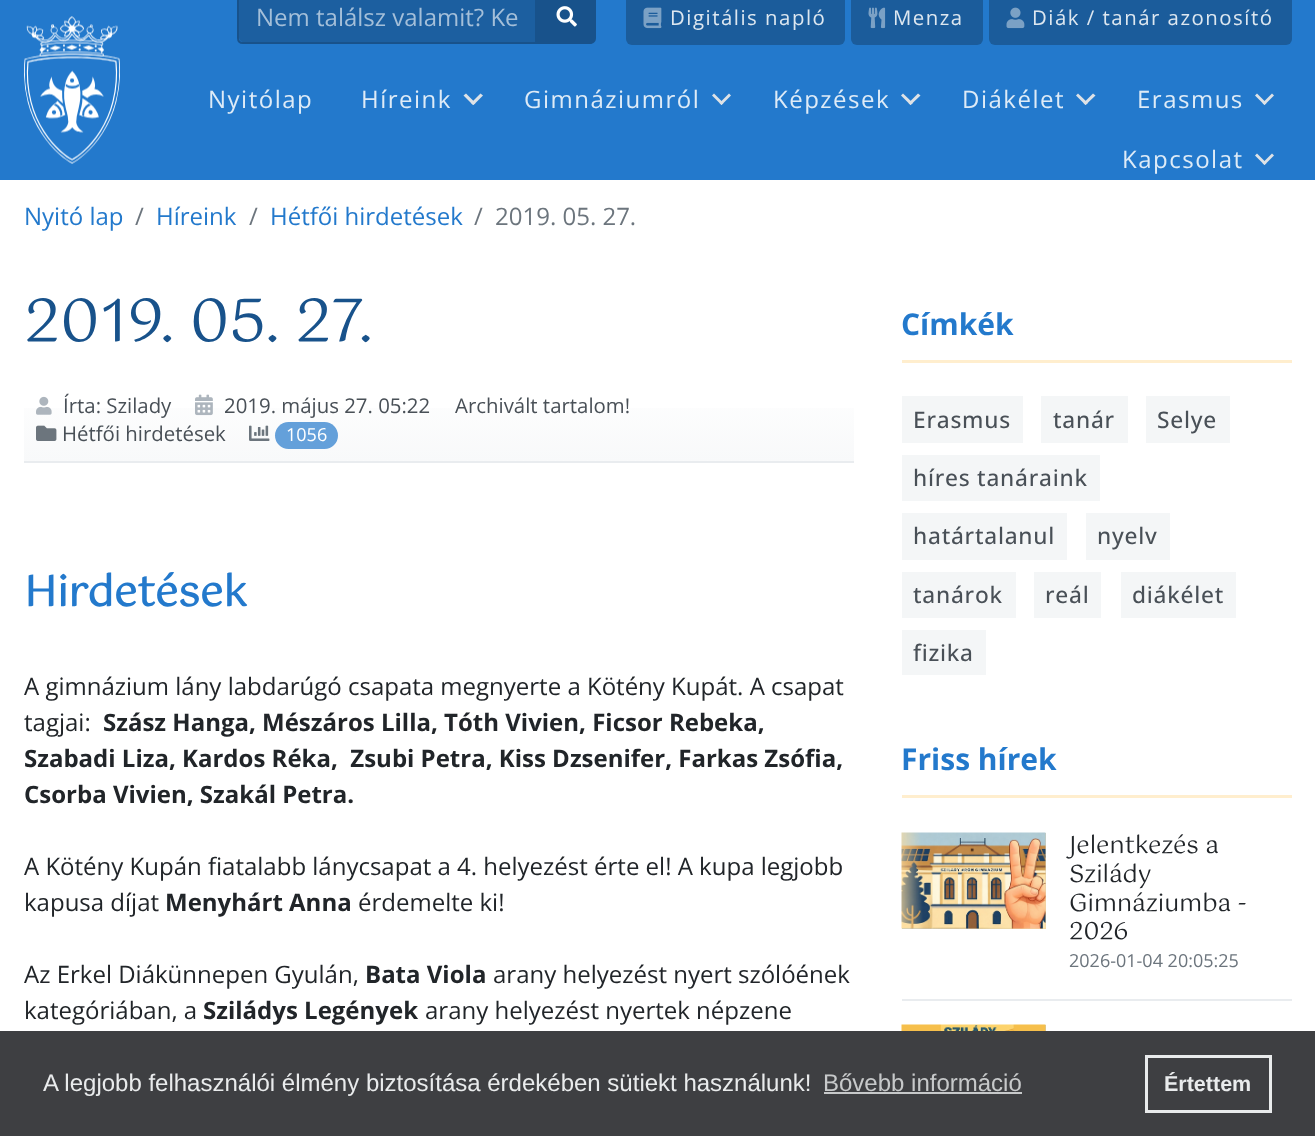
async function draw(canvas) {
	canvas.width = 1315;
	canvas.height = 1136;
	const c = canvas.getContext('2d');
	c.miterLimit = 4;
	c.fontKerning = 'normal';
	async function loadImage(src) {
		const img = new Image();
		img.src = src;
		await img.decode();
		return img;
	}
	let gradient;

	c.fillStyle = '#fff';
	c.fillRect(0, 0, 1315, 1136);
	c.fillStyle = '#2379cc';
	c.fillRect(0, 0, 1315, 180);
	c.drawImage(await loadImage('img1.png'), 24, 16, 96, 148);
	c.fillStyle = '#1c5fa0';
	c.beginPath();
	c.moveTo(244, -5);
	c.lineTo(536, -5);
	c.lineTo(536, 42);
	c.lineTo(244, 42);
	c.bezierCurveTo(241, 42, 239, 40, 239, 37);
	c.lineTo(239, 0);
	c.bezierCurveTo(239, -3, 241, -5, 244, -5);
	c.closePath();
	c.fill();
	c.beginPath();
	c.moveTo(243, -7);
	c.lineTo(536, -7);
	c.lineTo(536, 43);
	c.lineTo(243, 43);
	c.bezierCurveTo(240, 43, 238, 41, 238, 38);
	c.lineTo(238, -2);
	c.bezierCurveTo(238, -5, 240, -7, 243, -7);
	c.closePath();
	c.strokeStyle = '#18528b';
	c.lineWidth = 2;
	c.stroke();
	c.font = '24px Open Sans';
	c.fillStyle = '#a4bfd9';
	c.fillText('Nem találsz valamit? Ke', 256, 26);
	c.fillStyle = '#18528b';
	c.beginPath();
	c.moveTo(537, -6);
	c.lineTo(590, -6);
	c.bezierCurveTo(593.5, -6, 596, -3.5, 596, 0);
	c.lineTo(596, 38);
	c.bezierCurveTo(596, 41.5, 593.5, 44, 590, 44);
	c.lineTo(537, 44);
	c.closePath();
	c.fill();
	c.drawImage(await loadImage('img2.png'), 556, 6, 21, 21);
	c.fillStyle = '#1b5c9b';
	c.beginPath();
	c.roundRect(626, -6, 219, 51, 6);
	c.fill();
	c.drawImage(await loadImage('img3.png'), 643, 7, 19, 22);
	c.letterSpacing = '1.5px';
	c.font = '20.4px Open Sans';
	c.fillStyle = '#dde7f0';
	c.fillText('Digitális napló', 670, 25);
	c.fillStyle = '#1b5c9b';
	c.beginPath();
	c.roundRect(851, -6, 132, 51, 6);
	c.fill();
	c.drawImage(await loadImage('img4.png'), 868, 7, 18, 22);
	c.fillStyle = '#dde7f0';
	c.fillText('Menza', 893, 25);
	c.fillStyle = '#1b5c9b';
	c.beginPath();
	c.roundRect(989, -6, 303, 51, 6);
	c.fill();
	c.drawImage(await loadImage('img5.png'), 1006, 7, 19, 22);
	c.fillStyle = '#dde7f0';
	c.fillText('Diák / tanár azonosító', 1032, 25);
	c.font = '24px Open Sans';
	c.fillStyle = '#deebf7';
	c.fillText('Nyitólap', 208, 108);
	c.fillText('Híreink', 361, 108);
	c.fillStyle = '#dee2e6';
	c.beginPath();
	c.moveTo(466, 93.5);
	c.lineTo(475.5, 103);
	c.lineTo(473, 105);
	c.lineTo(463.5, 95.5);
	c.closePath();
	c.fill();
	c.beginPath();
	c.moveTo(471, 103);
	c.lineTo(480.5, 93.5);
	c.lineTo(483, 95.5);
	c.lineTo(473.5, 105);
	c.closePath();
	c.fill();
	c.fillStyle = '#deebf7';
	c.fillText('Gimnáziumról', 524, 108);
	c.fillStyle = '#dee2e6';
	c.beginPath();
	c.moveTo(714, 93.5);
	c.lineTo(723.5, 103);
	c.lineTo(721.5, 105);
	c.lineTo(712, 95.5);
	c.closePath();
	c.fill();
	c.beginPath();
	c.moveTo(719.5, 103);
	c.lineTo(729, 93.5);
	c.lineTo(731, 95.5);
	c.lineTo(721.5, 105);
	c.closePath();
	c.fill();
	c.fillStyle = '#deebf7';
	c.fillText('Képzések', 773, 108);
	c.fillStyle = '#dee2e6';
	c.beginPath();
	c.moveTo(903, 93.5);
	c.lineTo(913, 103);
	c.lineTo(910.5, 105);
	c.lineTo(901, 95.5);
	c.closePath();
	c.fill();
	c.beginPath();
	c.moveTo(908.5, 103);
	c.lineTo(918, 93.5);
	c.lineTo(920.5, 95.5);
	c.lineTo(910.5, 105);
	c.closePath();
	c.fill();
	c.fillStyle = '#deebf7';
	c.fillText('Diákélet', 962, 108);
	c.fillStyle = '#dee2e6';
	c.beginPath();
	c.moveTo(1078, 93.5);
	c.lineTo(1088, 103);
	c.lineTo(1085.5, 105);
	c.lineTo(1076, 95.5);
	c.closePath();
	c.fill();
	c.beginPath();
	c.moveTo(1083.5, 103);
	c.lineTo(1093, 93.5);
	c.lineTo(1095.5, 95.5);
	c.lineTo(1085.5, 105);
	c.closePath();
	c.fill();
	c.fillStyle = '#deebf7';
	c.fillText('Erasmus', 1137, 108);
	c.fillStyle = '#dee2e6';
	c.beginPath();
	c.moveTo(1257, 93.5);
	c.lineTo(1266.5, 103);
	c.lineTo(1264.5, 105);
	c.lineTo(1255, 95.5);
	c.closePath();
	c.fill();
	c.beginPath();
	c.moveTo(1262.5, 103);
	c.lineTo(1272, 93.5);
	c.lineTo(1274, 95.5);
	c.lineTo(1264.5, 105);
	c.closePath();
	c.fill();
	c.fillStyle = '#deebf7';
	c.fillText('Kapcsolat', 1122, 168);
	c.fillStyle = '#dee2e6';
	c.beginPath();
	c.moveTo(1257, 153.5);
	c.lineTo(1266.5, 163);
	c.lineTo(1264.5, 165);
	c.lineTo(1255, 155.5);
	c.closePath();
	c.fill();
	c.beginPath();
	c.moveTo(1262.5, 163);
	c.lineTo(1272, 153.5);
	c.lineTo(1274, 155.5);
	c.lineTo(1264.5, 165);
	c.closePath();
	c.fill();
	c.letterSpacing = '0px';
	c.fillStyle = '#2379cc';
	c.fillText('Nyitó lap', 24, 225);
	c.fillStyle = '#6c757d';
	c.fillText('/', 135, 225);
	c.fillStyle = '#2379cc';
	c.fillText('Híreink', 156, 225);
	c.fillStyle = '#6c757d';
	c.fillText('/', 249, 225);
	c.fillStyle = '#2379cc';
	c.fillText('Hétfői hirdetések', 270, 225);
	c.fillStyle = '#6c757d';
	c.fillText('/', 474, 225);
	c.fillText('2019. 05. 27.', 495, 225);
	c.font = '60px Gotu';
	c.fillStyle = '#18528b';
	c.fillText('2019. 05. 27.', 24, 341);
	gradient = c.createLinearGradient(439, 378, 439, 461);
	gradient.addColorStop(0, '#fff');
	gradient.addColorStop(1, '#f8f9fa');
	c.fillStyle = gradient;
	c.fillRect(24, 408, 830, 53);
	c.fillStyle = '#e9ecef';
	c.fillRect(24, 461, 830, 2);
	c.drawImage(await loadImage('img6.png'), 36, 396, 16, 19);
	c.font = '20.4px Open Sans';
	c.fillStyle = '#495057';
	c.fillText('Írta: Szilady', 63, 413);
	c.drawImage(await loadImage('img7.png'), 195, 394, 18, 22);
	c.fillText('2019. május 27. 05:22', 224, 413);
	c.fillText('Archivált tartalom!', 455, 413);
	c.drawImage(await loadImage('img8.png'), 36, 425, 21, 16);
	c.fillText('Hétfői hirdetések', 62, 441);
	c.drawImage(await loadImage('img9.png'), 249, 425, 21, 16);
	c.fillStyle = '#64a0da';
	c.beginPath();
	c.roundRect(275, 422, 63, 27, 13.5);
	c.fill();
	c.font = '18px Open Sans';
	c.fillStyle = '#fff';
	c.fillText('1056', 286, 441);
	c.font = 'bold 42px Gotu';
	c.fillStyle = '#2379cc';
	c.fillText('Hirdetések', 24, 606);
	c.font = '24px Open Sans';
	c.fillStyle = '#212529';
	c.fillText('A gimnázium lány labdarúgó csapata megnyerte a Kötény Kupát. A csapat', 24, 695);
	c.fillText('tagjai:', 24, 731);
	c.font = 'bold 24px Open Sans';
	for (const [text, x, y] of [
		['Szász Hanga, Mészáros Lilla, Tóth Vivien, Ficsor Rebeka,', 103, 731],
		['Szabadi Liza, Kardos Réka,  Zsubi Petra, Kiss Dzsenifer, Farkas Zsófia,', 24, 767],
		['Csorba Vivien, Szakál Petra.', 24, 803],
	]) {
		c.fillText(text, x, y);
	}
	c.font = '24px Open Sans';
	c.fillText('A Kötény Kupán fiatalabb lánycsapat a 4. helyezést érte el! A kupa legjobb', 24, 875);
	c.fillText('kapusa díjat', 24, 911);
	c.font = 'bold 24px Open Sans';
	c.fillText('Menyhárt Anna', 165, 911);
	c.font = '24px Open Sans';
	c.fillText('érdemelte ki!', 358, 911);
	c.fillText('Az Erkel Diákünnepen Gyulán,', 24, 983);
	c.font = 'bold 24px Open Sans';
	c.fillText('Bata Viola', 365, 983);
	c.font = '24px Open Sans';
	c.fillText('arany helyezést nyert szólóének', 493, 983);
	c.fillText('kategóriában, a', 24, 1019);
	c.font = 'bold 24px Open Sans';
	c.fillText('Sziládys Legények', 203, 1019);
	c.font = '24px Open Sans';
	c.fillText('arany helyezést nyertek népzene', 425, 1019);
	c.fillStyle = '#ffeece';
	c.fillRect(902, 360, 390, 3);
	c.font = 'bold 30px Open Sans';
	c.fillStyle = '#2379cc';
	c.fillText('Címkék', 901, 335);
	c.fillStyle = '#f4f6f7';
	c.fillRect(902, 396, 121, 47);
	c.letterSpacing = '0.75px';
	c.font = '500 22.75px Open Sans';
	c.fillStyle = '#495057';
	c.fillText('Erasmus', 913, 428);
	c.fillStyle = '#f4f6f7';
	c.fillRect(1041, 396, 87, 47);
	c.fillStyle = '#495057';
	c.fillText('tanár', 1053, 428);
	c.fillStyle = '#f4f6f7';
	c.fillRect(1146, 396, 84, 47);
	c.fillStyle = '#495057';
	c.fillText('Selye', 1157, 428);
	c.fillStyle = '#f4f6f7';
	c.fillRect(902, 455, 198, 46);
	c.fillStyle = '#495057';
	c.fillText('híres tanáraink', 913, 486);
	c.fillStyle = '#f4f6f7';
	c.fillRect(902, 513, 165, 47);
	c.fillStyle = '#495057';
	c.fillText('határtalanul', 913, 544);
	c.fillStyle = '#f4f6f7';
	c.fillRect(1086, 513, 84, 47);
	c.fillStyle = '#495057';
	c.fillText('nyelv', 1097, 544);
	c.fillStyle = '#f4f6f7';
	c.fillRect(902, 572, 114, 46);
	c.fillStyle = '#495057';
	c.fillText('tanárok', 913, 603);
	c.fillStyle = '#f4f6f7';
	c.fillRect(1034, 572, 67, 46);
	c.fillStyle = '#495057';
	c.fillText('reál', 1045, 603);
	c.fillStyle = '#f4f6f7';
	c.fillRect(1121, 572, 115, 46);
	c.fillStyle = '#495057';
	c.fillText('diákélet', 1132, 603);
	c.fillStyle = '#f4f6f7';
	c.fillRect(902, 630, 84, 45);
	c.fillStyle = '#495057';
	c.fillText('fizika', 913, 661);
	c.fillStyle = '#ffeece';
	c.fillRect(902, 795, 390, 3);
	c.letterSpacing = '0px';
	c.font = 'bold 30px Open Sans';
	c.fillStyle = '#2379cc';
	c.fillText('Friss hírek', 901, 770);
	c.fillStyle = '#e9ecef';
	c.fillRect(902, 999, 390, 2);
	gradient = c.createLinearGradient(1034, 941, 914, 821);
	gradient.addColorStop(0, '#f3d69e');
	gradient.addColorStop(1, '#90b8df');
	c.fillStyle = gradient;
	c.fillRect(902, 833, 144, 96);
	c.drawImage(await loadImage('img10.png'), 901, 832, 145, 97);
	c.font = '24px Gotu';
	c.fillStyle = '#212529';
	for (const [text, x, y] of [
		['Jelentkezés a', 1069, 853],
		['Szilády', 1069, 882],
		['Gimnáziumba -', 1069, 911],
		['2026', 1069, 939],
	]) {
		c.fillText(text, x, y);
	}
	c.font = '18px Open Sans';
	c.fillStyle = '#6c757d';
	c.fillText('2026-01-04 20:05:25', 1069, 967);
	gradient = c.createLinearGradient(1034, 1133, 914, 1013);
	gradient.addColorStop(0, '#f3d69e');
	gradient.addColorStop(1, '#90b8df');
	c.fillStyle = gradient;
	c.fillRect(1045, 1025, 1, 6);
	c.drawImage(await loadImage('img11.png'), 901, 1024, 145, 7);
	c.fillStyle = '#3e3f42';
	c.fillRect(0, 1031, 1315, 105);
	c.font = '24px Liberation Sans';
	c.fillStyle = '#e9ebec';
	c.fillText('A legjobb felhasználói élmény biztosítása érdekében sütiekt használunk!', 43, 1091);
	c.fillStyle = '#c7c9ca';
	c.fillText('Bővebb információ', 823, 1091);
	c.fillRect(824, 1092, 198, 2);
	c.strokeStyle = '#e9ebec';
	c.lineWidth = 3;
	c.strokeRect(1146.5, 1056.5, 124, 55);
	c.font = 'bold 21.5px Liberation Sans';
	c.fillStyle = '#e9ebec';
	c.fillText('Értettem', 1164, 1091);
}

draw(document.querySelector('canvas'));
